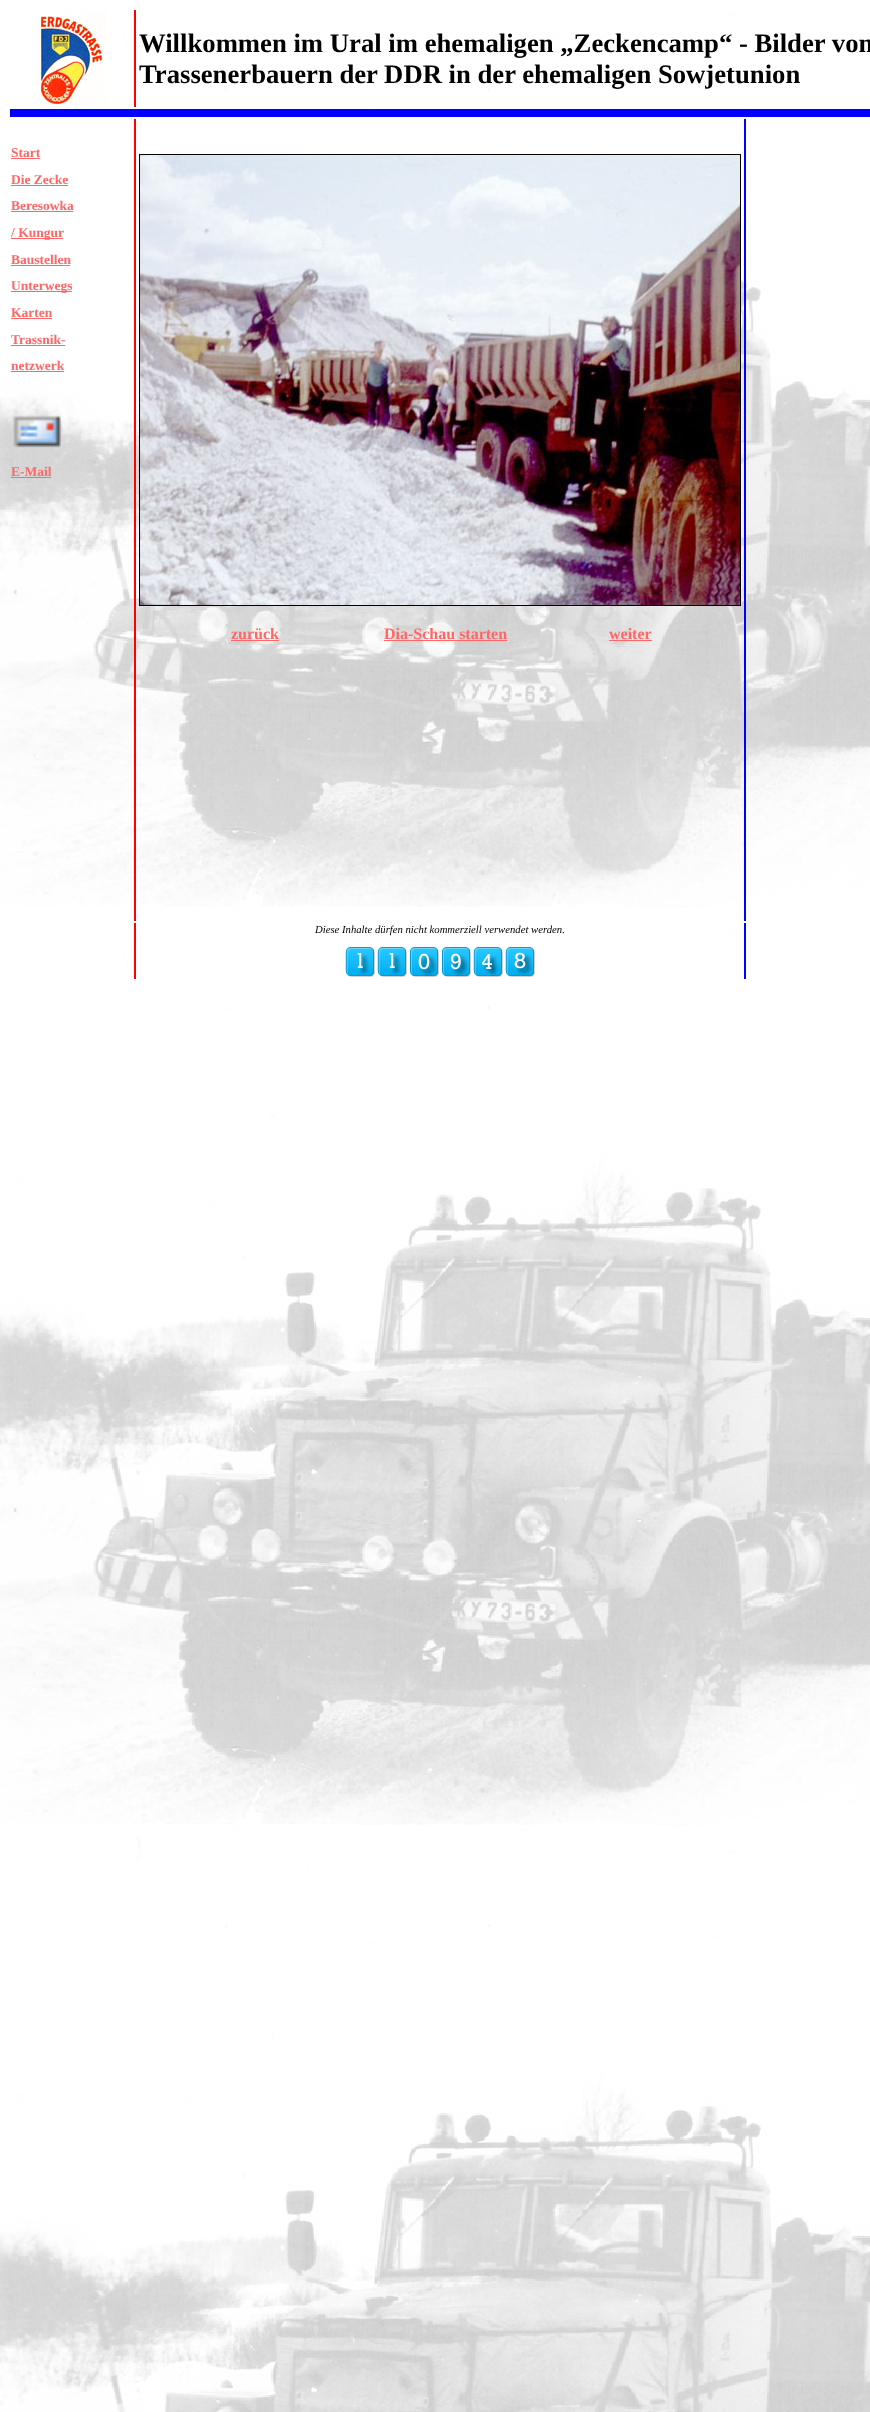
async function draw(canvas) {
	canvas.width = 870;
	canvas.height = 2412;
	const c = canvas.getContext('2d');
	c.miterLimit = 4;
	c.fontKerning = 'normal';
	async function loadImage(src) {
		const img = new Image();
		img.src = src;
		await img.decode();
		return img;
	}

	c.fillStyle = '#fff';
	c.fillRect(0, 0, 870, 2412);
	c.drawImage(await loadImage('img1.png'), 0, 0, 870, 2412);
	c.drawImage(await loadImage('img2.png'), 39, 11, 67, 94);
	c.fillStyle = '#f00';
	c.fillRect(134, 10, 2, 97);
	c.font = 'bold 26.7px Liberation Serif';
	c.fillStyle = '#000';
	c.fillText('Willkommen im Ural im ehemaligen „Zeckencamp“ - Bilder von', 139, 52);
	c.fillText('Trassenerbauern der DDR in der ehemaligen Sowjetunion', 139, 83);
	c.fillStyle = '#00f';
	c.fillRect(10, 109, 860, 8);
	c.font = 'bold 13.5px Liberation Serif';
	c.fillStyle = '#f66';
	c.fillText('Start', 11, 157);
	c.fillRect(11, 158, 29, 1);
	c.fillText('Die Zecke', 11, 184);
	c.fillRect(11, 185, 57, 1);
	c.fillText('Beresowka', 11, 210);
	c.fillRect(11, 211, 62, 1);
	c.fillRect(11, 238, 52, 1);
	c.fillText('/ Kungur', 11, 237);
	c.fillText('Baustellen', 11, 264);
	c.fillRect(11, 265, 59, 1);
	c.fillRect(11, 291, 61, 1);
	c.fillText('Unterwegs', 11, 290);
	c.fillText('Karten', 11, 317);
	c.fillRect(11, 318, 41, 1);
	c.fillText('Trassnik-', 11, 344);
	c.fillRect(11, 345, 54, 1);
	c.fillText('netzwerk', 11, 370);
	c.fillRect(11, 371, 53, 1);
	c.drawImage(await loadImage('img3.png'), 13, 415, 48, 33);
	c.fillText('E-Mail', 11, 476);
	for (const [x, y, w, h, color] of [
		[11, 477, 40, 1, '#f66'],
		[134, 119, 2, 802, '#f00'],
		[744, 119, 2, 802, '#00f'],
	]) {
		c.fillStyle = color;
		c.fillRect(x, y, w, h);
	}
	c.strokeStyle = '#000';
	c.strokeRect(139.5, 154.5, 601, 451);
	c.drawImage(await loadImage('img4.png'), 140, 155, 600, 450);
	c.font = 'bold 16px Liberation Serif';
	c.fillStyle = '#f66';
	c.fillText('zurück', 231, 639);
	c.fillRect(231, 640, 48, 1);
	c.fillText('Dia-Schau starten', 384, 639);
	c.fillRect(384, 640, 123, 1);
	c.fillText('weiter', 609, 639);
	c.fillRect(609, 640, 43, 1);
	c.fillStyle = '#f00';
	c.fillRect(134, 923, 2, 56);
	c.font = 'italic 10.7px Liberation Serif';
	c.fillStyle = '#000';
	c.fillText('Diese Inhalte dürfen nicht kommerziell verwendet werden.', 315, 933);
	c.drawImage(await loadImage('img5.png'), 345, 947, 190, 30);
	c.fillStyle = '#00f';
	c.fillRect(744, 923, 2, 56);
}

draw(document.querySelector('canvas'));
